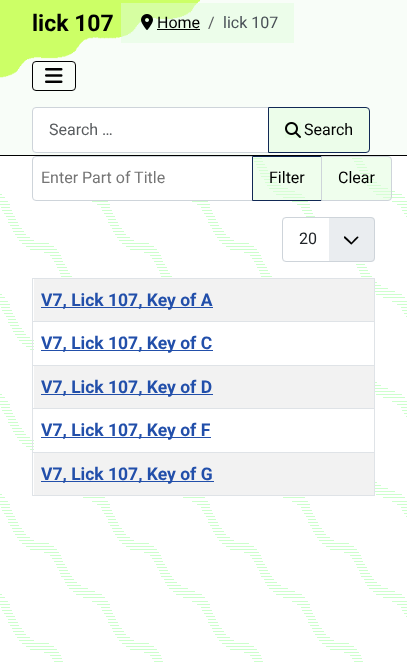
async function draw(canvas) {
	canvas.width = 407;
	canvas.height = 662;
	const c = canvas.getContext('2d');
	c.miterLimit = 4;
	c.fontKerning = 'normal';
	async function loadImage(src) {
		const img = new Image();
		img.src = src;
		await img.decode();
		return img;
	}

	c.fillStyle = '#fff';
	c.fillRect(0, 0, 407, 662);
	c.drawImage(await loadImage('img1.png'), 0, 156, 407, 506);
	c.fillStyle = '#f8fdf8';
	c.fillRect(0, 0, 407, 155);
	c.fillStyle = '#000';
	c.fillRect(0, 155, 407, 1);
	c.drawImage(await loadImage('img2.png'), 0, 0, 200, 78);
	c.font = 'bold 23px Roboto';
	c.fillText('lick 107', 32, 31);
	c.fillStyle = '#e0fddc80';
	c.fillRect(121, 3, 173, 40);
	c.drawImage(await loadImage('img3.png'), 141, 14, 12, 16);
	c.font = '16px Roboto';
	c.fillStyle = '#000';
	c.fillText('Home', 157, 28);
	c.fillRect(157, 29, 43, 1);
	c.fillStyle = '#595c5f';
	c.fillText('/', 208, 28);
	c.fillStyle = '#484f56';
	c.fillText('lick 107', 223, 28);
	c.beginPath();
	c.roundRect(32.5, 61.5, 43, 29, 3.5);
	c.strokeStyle = '#000';
	c.stroke();
	c.drawImage(await loadImage('img4.png'), 45, 68, 18, 15);
	c.fillStyle = '#fff';
	c.beginPath();
	c.roundRect(32.5, 107.5, 236, 45, [3.5, 0, 0, 3.5]);
	c.fill();
	c.strokeStyle = '#ced4da';
	c.stroke();
	c.fillStyle = '#595c5f';
	c.fillText('Search …', 49, 135);
	c.fillStyle = '#e0fddc80';
	c.beginPath();
	c.roundRect(268.5, 107.5, 101, 45, [0, 3.5, 3.5, 0]);
	c.fill();
	c.strokeStyle = '#112855';
	c.stroke();
	c.fillStyle = '#e6fde3';
	c.fillRect(285, 122, 16, 16);
	c.drawImage(await loadImage('img5.png'), 285, 122, 16, 16);
	c.fillStyle = '#000';
	c.fillText('Search', 304, 135);
	c.fillStyle = '#fff';
	c.beginPath();
	c.roundRect(32.5, 156.5, 220, 44, [3.5, 0, 0, 3.5]);
	c.fill();
	c.strokeStyle = '#ced4da';
	c.stroke();
	c.fillStyle = '#757575';
	c.fillText('Enter Part of Title', 41, 183);
	c.fillStyle = '#e0fddc80';
	c.beginPath();
	c.rect(252.5, 156.5, 69, 44);
	c.fill();
	c.strokeStyle = '#112855';
	c.stroke();
	c.fillStyle = '#000';
	c.fillText('Filter', 269, 183);
	c.fillStyle = '#e0fddc80';
	c.beginPath();
	c.roundRect(321.5, 156.5, 70, 44, [0, 3.5, 3.5, 0]);
	c.fill();
	c.strokeStyle = '#ced4da';
	c.stroke();
	c.fillStyle = '#000';
	c.fillText('Clear', 338, 183);
	c.fillStyle = '#eaedf0';
	c.beginPath();
	c.roundRect(282, 217, 93, 45, 4);
	c.fill();
	c.fillStyle = '#000';
	c.beginPath();
	c.moveTo(344, 238);
	c.lineTo(350, 243.5);
	c.bezierCurveTo(351.5, 245, 351, 245, 352.5, 243.5);
	c.lineTo(358.5, 237.5);
	c.bezierCurveTo(358, 234.5, 355.5, 238.5, 355, 238.5);
	c.lineTo(351.5, 242.5);
	c.lineTo(347.5, 238.5);
	c.bezierCurveTo(346.5, 237.5, 344, 234.5, 344, 237.5);
	c.closePath();
	c.fill();
	c.fillStyle = '#fff';
	c.beginPath();
	c.roundRect(282, 217, 47, 45, [4, 0, 0, 4]);
	c.fill();
	c.beginPath();
	c.roundRect(282.5, 217.5, 92, 44, 3.5);
	c.stroke();
	c.fillStyle = '#22262a';
	c.fillText('20', 299, 244);
	for (const [x, y, w, h, color] of [
		[32, 278, 343, 1, '#dfe3e7'],
		[34, 279, 340, 42, '#f2f2f2'],
		[41, 307, 172, 1, '#224faa'],
	]) {
		c.fillStyle = color;
		c.fillRect(x, y, w, h);
	}
	c.font = 'bold 17.5px Roboto';
	c.fillText('V7, Lick 107, Key of A', 41, 306);
	for (const [x, y, w, h, color] of [
		[32, 321, 343, 1, '#dfe3e7'],
		[34, 322, 331, 43, '#fff'],
		[41, 350, 172, 1, '#224faa'],
	]) {
		c.fillStyle = color;
		c.fillRect(x, y, w, h);
	}
	c.fillText('V7, Lick 107, Key of C', 41, 349);
	for (const [x, y, w, h, color] of [
		[32, 365, 343, 1, '#dfe3e7'],
		[34, 366, 340, 42, '#f2f2f2'],
		[41, 394, 172, 1, '#224faa'],
	]) {
		c.fillStyle = color;
		c.fillRect(x, y, w, h);
	}
	c.fillText('V7, Lick 107, Key of D', 41, 393);
	for (const [x, y, w, h, color] of [
		[32, 408, 343, 1, '#dfe3e7'],
		[34, 410, 323, 40, '#fff'],
		[41, 437, 170, 1, '#224faa'],
	]) {
		c.fillStyle = color;
		c.fillRect(x, y, w, h);
	}
	c.fillText('V7, Lick 107, Key of F', 41, 436);
	for (const [x, y, w, h, color] of [
		[32, 452, 343, 1, '#dfe3e7'],
		[32, 495, 343, 1, '#dfe3e7'],
		[34, 453, 340, 42, '#f2f2f2'],
		[374, 278, 1, 218, '#dfe3e7'],
		[32, 278, 1, 218, '#dfe3e7'],
		[41, 481, 173, 1, '#224faa'],
	]) {
		c.fillStyle = color;
		c.fillRect(x, y, w, h);
	}
	c.fillText('V7, Lick 107, Key of G', 41, 480);
}

draw(document.querySelector('canvas'));
